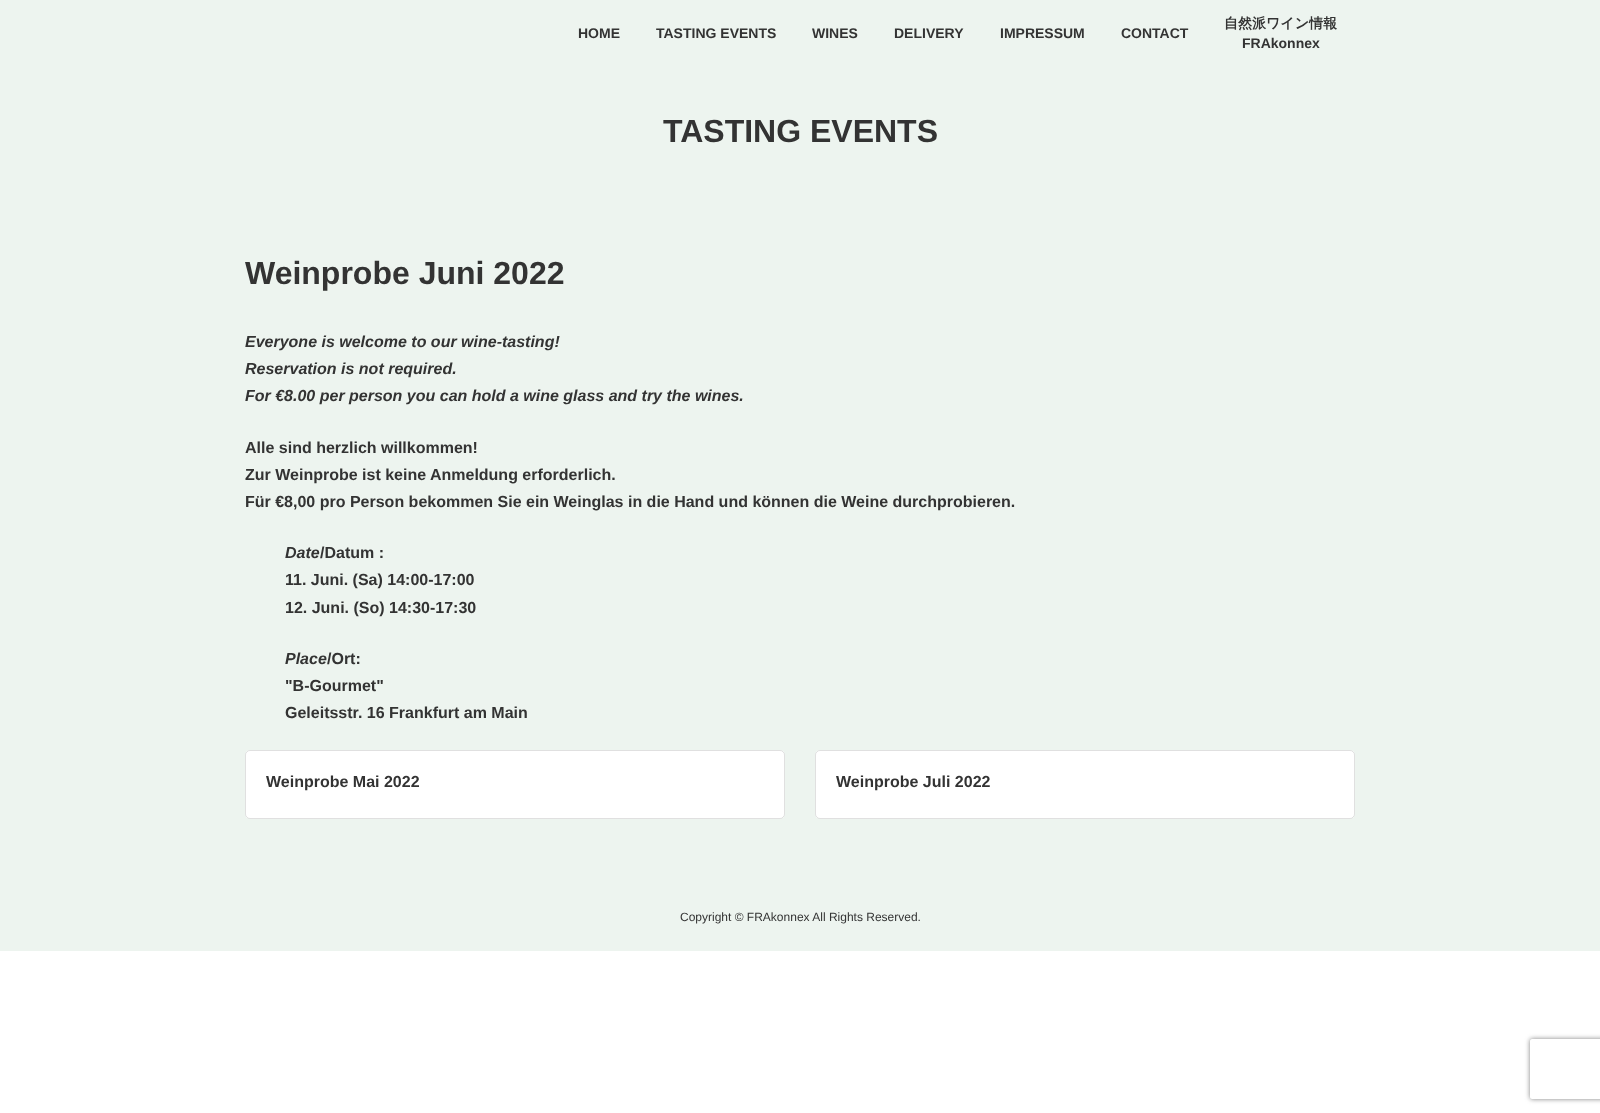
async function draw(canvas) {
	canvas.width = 1600;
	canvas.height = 1113;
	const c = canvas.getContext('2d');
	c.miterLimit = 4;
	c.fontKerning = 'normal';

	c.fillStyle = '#fff';
	c.fillRect(0, 0, 1600, 1113);
	c.fillStyle = '#edf4ef';
	c.fillRect(0, 0, 1600, 951);
	c.font = 'bold 14px Liberation Sans';
	c.fillStyle = '#333';
	for (const [text, x, y] of [
		['HOME', 578, 38],
		['TASTING EVENTS', 656, 38],
		['WINES', 812, 38],
		['DELIVERY', 894, 38],
		['IMPRESSUM', 1000, 38],
		['CONTACT', 1121, 38],
	]) {
		c.fillText(text, x, y);
	}
	c.font = 'bold 14px WenQuanYi Zen Hei';
	c.fillText('自然派ワイン情報', 1224, 28);
	c.font = 'bold 14px Liberation Sans';
	c.fillText('FRAkonnex', 1242, 48);
	c.font = 'bold 32px Liberation Sans';
	c.fillText('TASTING EVENTS', 663, 142);
	c.fillText('Weinprobe Juni 2022', 245, 284);
	c.font = 'italic bold 16px Liberation Sans';
	for (const [text, x, y] of [
		['Everyone is welcome to our wine-tasting!', 245, 347],
		['Reservation is not required.', 245, 374],
		['For €8.00 per person you can hold a wine glass and try the wines.', 245, 401],
	]) {
		c.fillText(text, x, y);
	}
	c.font = 'bold 16px Liberation Sans';
	for (const [text, x, y] of [
		['Alle sind herzlich willkommen!', 245, 453],
		['Zur Weinprobe ist keine Anmeldung erforderlich.', 245, 480],
		['Für €8,00 pro Person bekommen Sie ein Weinglas in die Hand und können die Weine durchprobieren.', 245, 507],
	]) {
		c.fillText(text, x, y);
	}
	c.font = 'italic bold 16px Liberation Sans';
	c.fillText('Date', 285, 558);
	c.font = 'bold 16px Liberation Sans';
	for (const [text, x, y] of [
		['/Datum :', 320, 558],
		['11. Juni. (Sa) 14:00-17:00', 285, 585],
		['12. Juni. (So) 14:30-17:30', 285, 613],
	]) {
		c.fillText(text, x, y);
	}
	c.font = 'italic bold 16px Liberation Sans';
	c.fillText('Place', 285, 664);
	c.font = 'bold 16px Liberation Sans';
	for (const [text, x, y] of [
		['/Ort:', 327, 664],
		['"B-Gourmet"', 285, 691],
		['Geleitsstr. 16 Frankfurt am Main', 285, 718],
	]) {
		c.fillText(text, x, y);
	}
	c.fillStyle = '#fff';
	c.beginPath();
	c.roundRect(245, 750, 540, 69, 5);
	c.fill();
	c.beginPath();
	c.roundRect(245.5, 750.5, 539, 68, 4.5);
	c.strokeStyle = '#0000001f';
	c.stroke();
	c.fillStyle = '#333';
	c.fillText('Weinprobe Mai 2022', 266, 787);
	c.fillStyle = '#fff';
	c.beginPath();
	c.roundRect(815, 750, 540, 69, 5);
	c.fill();
	c.beginPath();
	c.roundRect(815.5, 750.5, 539, 68, 4.5);
	c.stroke();
	c.fillStyle = '#333';
	c.fillText('Weinprobe Juli 2022', 836, 787);
	c.font = '12px Liberation Sans';
	c.fillText('Copyright © FRAkonnex All Rights Reserved.', 680, 921);
	c.save();
	c.beginPath();
	c.moveTo(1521, 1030);
	c.lineTo(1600, 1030);
	c.lineTo(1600, 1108);
	c.lineTo(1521, 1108);
	c.closePath();
	c.moveTo(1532, 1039);
	c.lineTo(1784, 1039);
	c.bezierCurveTo(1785, 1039, 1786, 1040, 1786, 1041);
	c.lineTo(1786, 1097);
	c.bezierCurveTo(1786, 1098, 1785, 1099, 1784, 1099);
	c.lineTo(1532, 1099);
	c.bezierCurveTo(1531, 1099, 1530, 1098, 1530, 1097);
	c.lineTo(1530, 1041);
	c.bezierCurveTo(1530, 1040, 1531, 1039, 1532, 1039);
	c.closePath();
	c.clip('evenodd');
	c.fillStyle = '#808080';
	c.filter = 'blur(2.5px)';
	c.beginPath();
	c.roundRect(1530, 1039, 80, 60, 2);
	c.fill();
	c.filter = 'none';
	c.restore();
}

draw(document.querySelector('canvas'));
